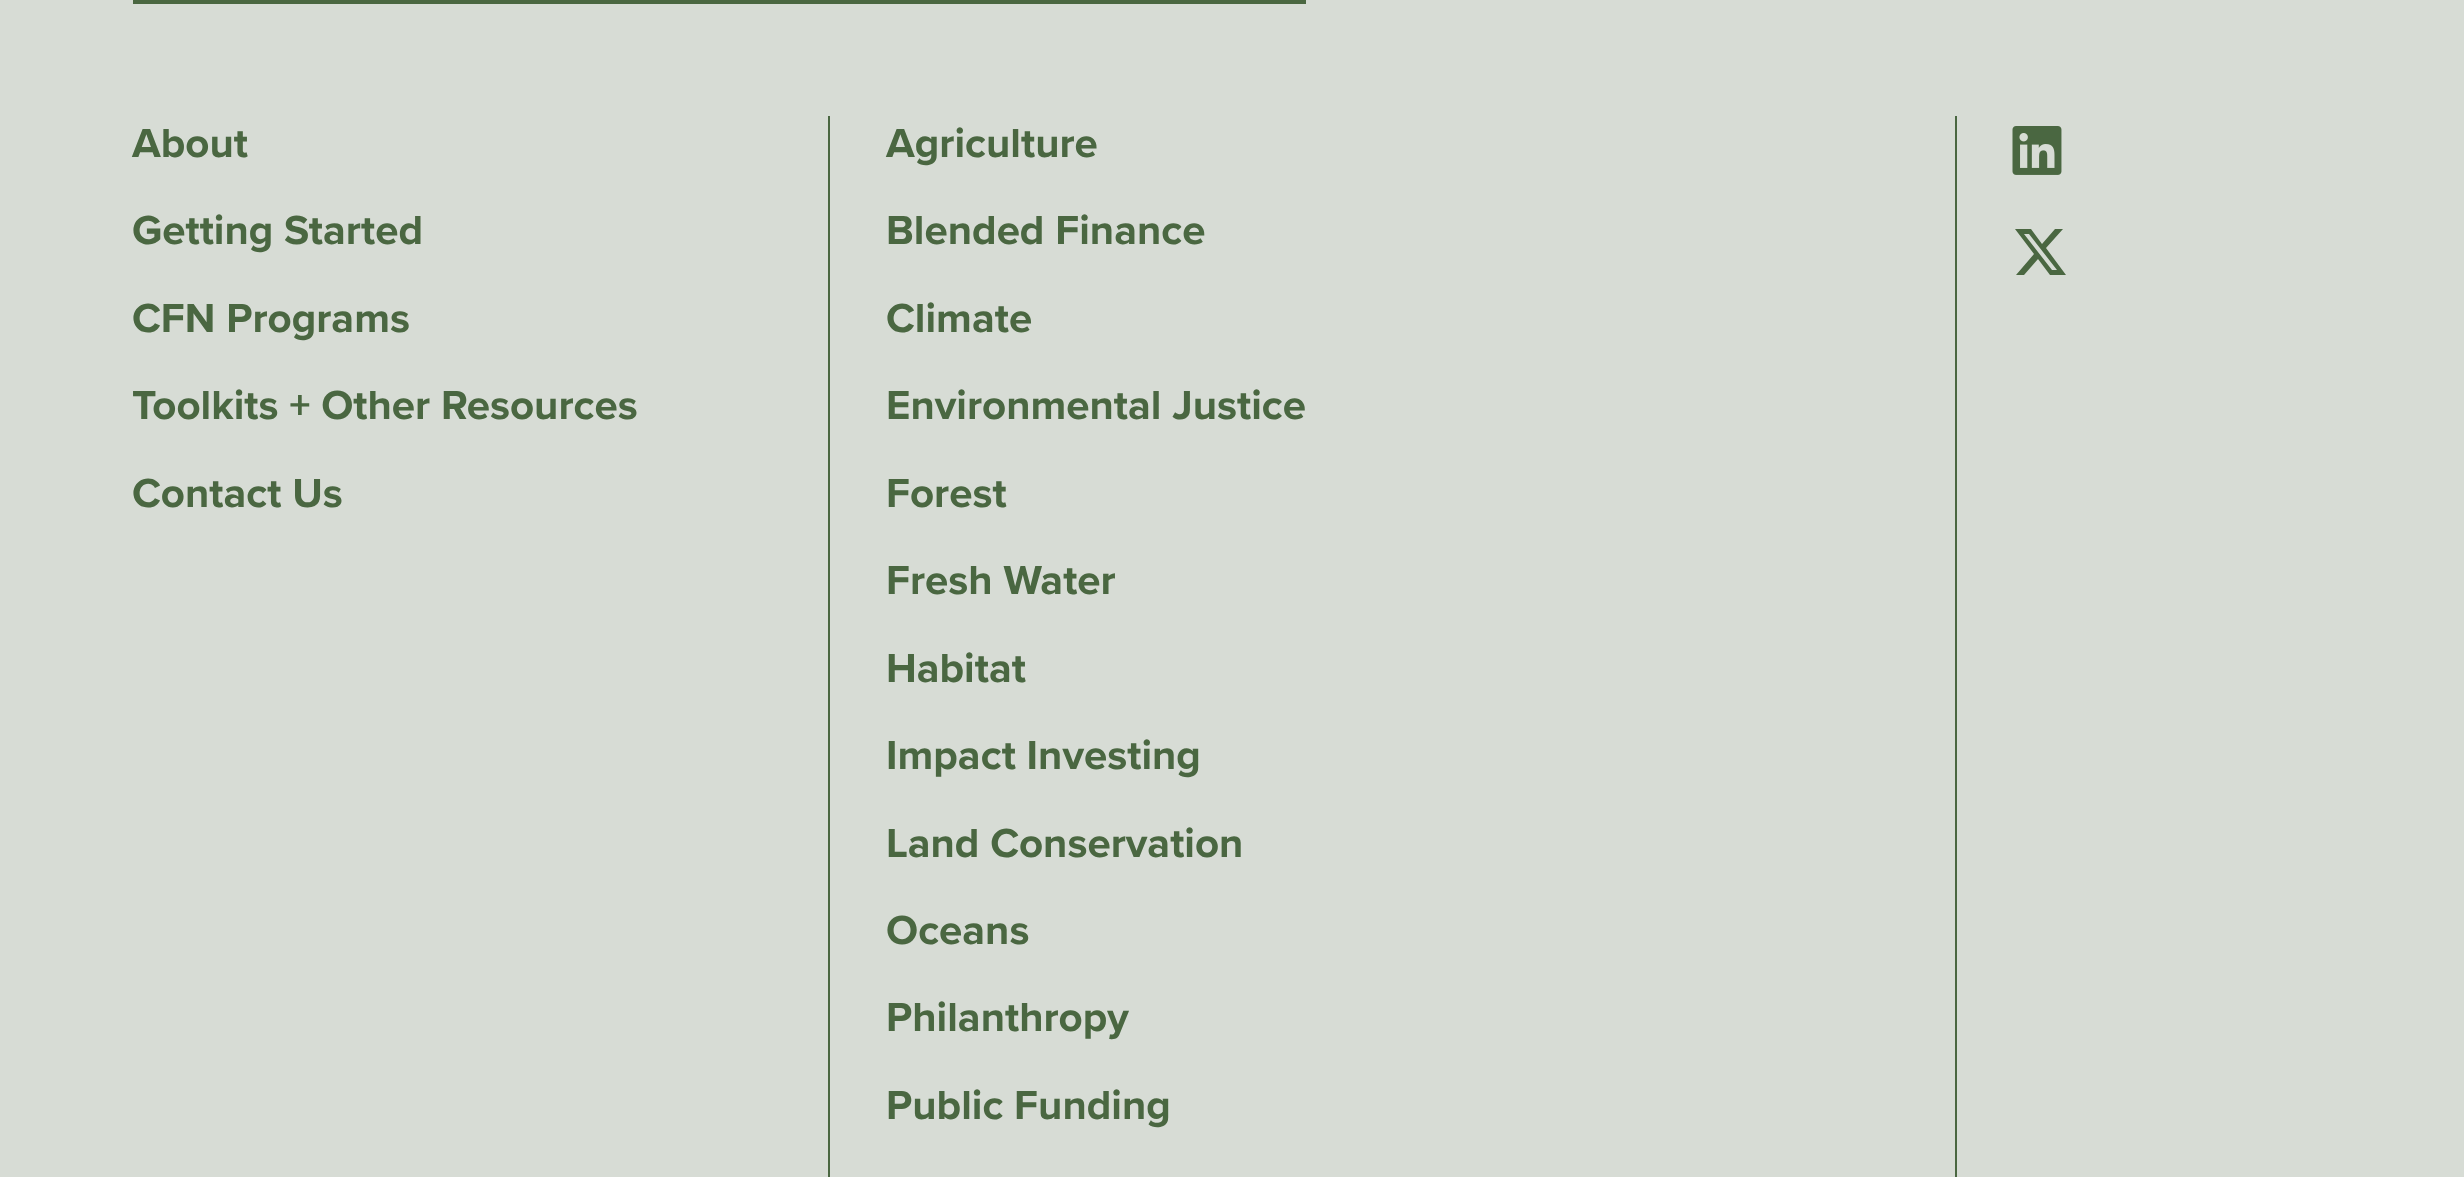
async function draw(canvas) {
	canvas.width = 2464;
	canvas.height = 1177;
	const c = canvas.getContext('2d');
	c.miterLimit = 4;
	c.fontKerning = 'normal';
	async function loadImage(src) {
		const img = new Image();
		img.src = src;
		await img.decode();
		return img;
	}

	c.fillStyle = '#d7dcd5';
	c.fillRect(0, 0, 2464, 1177);
	c.fillStyle = '#4a6741';
	c.fillRect(133, 0, 1173, 4);
	c.font = 'bold 42px Proxima Nova';
	for (const [text, x, y] of [
		['About', 132, 157],
		['Getting Started', 132, 244],
		['CFN Programs', 132, 332],
		['Toolkits + Other Resources', 132, 419],
		['Contact Us', 132, 507],
	]) {
		c.fillText(text, x, y);
	}
	c.fillRect(1955, 116, 2, 1061);
	c.fillRect(828, 116, 2, 1061);
	for (const [text, x, y] of [
		['Agriculture', 886, 157],
		['Blended Finance', 886, 244],
		['Climate', 886, 332],
		['Environmental Justice', 886, 419],
		['Forest', 886, 507],
		['Fresh Water', 886, 594],
		['Habitat', 886, 682],
		['Impact Investing', 886, 769],
		['Land Conservation', 886, 857],
		['Oceans', 886, 944],
		['Philanthropy', 886, 1031],
		['Public Funding', 886, 1119],
	]) {
		c.fillText(text, x, y);
	}
	c.drawImage(await loadImage('img1.png'), 2012, 126, 50, 49);
	c.beginPath();
	c.moveTo(2055, 229);
	c.lineTo(2063, 229);
	c.lineTo(2046, 248);
	c.lineTo(2066, 275);
	c.lineTo(2050, 275);
	c.lineTo(2038, 259);
	c.lineTo(2024, 275);
	c.lineTo(2016, 275);
	c.lineTo(2034, 254);
	c.lineTo(2015, 229);
	c.lineTo(2031, 229);
	c.lineTo(2042, 244);
	c.closePath();
	c.moveTo(2052, 270);
	c.lineTo(2057, 270);
	c.lineTo(2029, 234);
	c.lineTo(2024, 234);
	c.closePath();
	c.fill();
}

draw(document.querySelector('canvas'));
